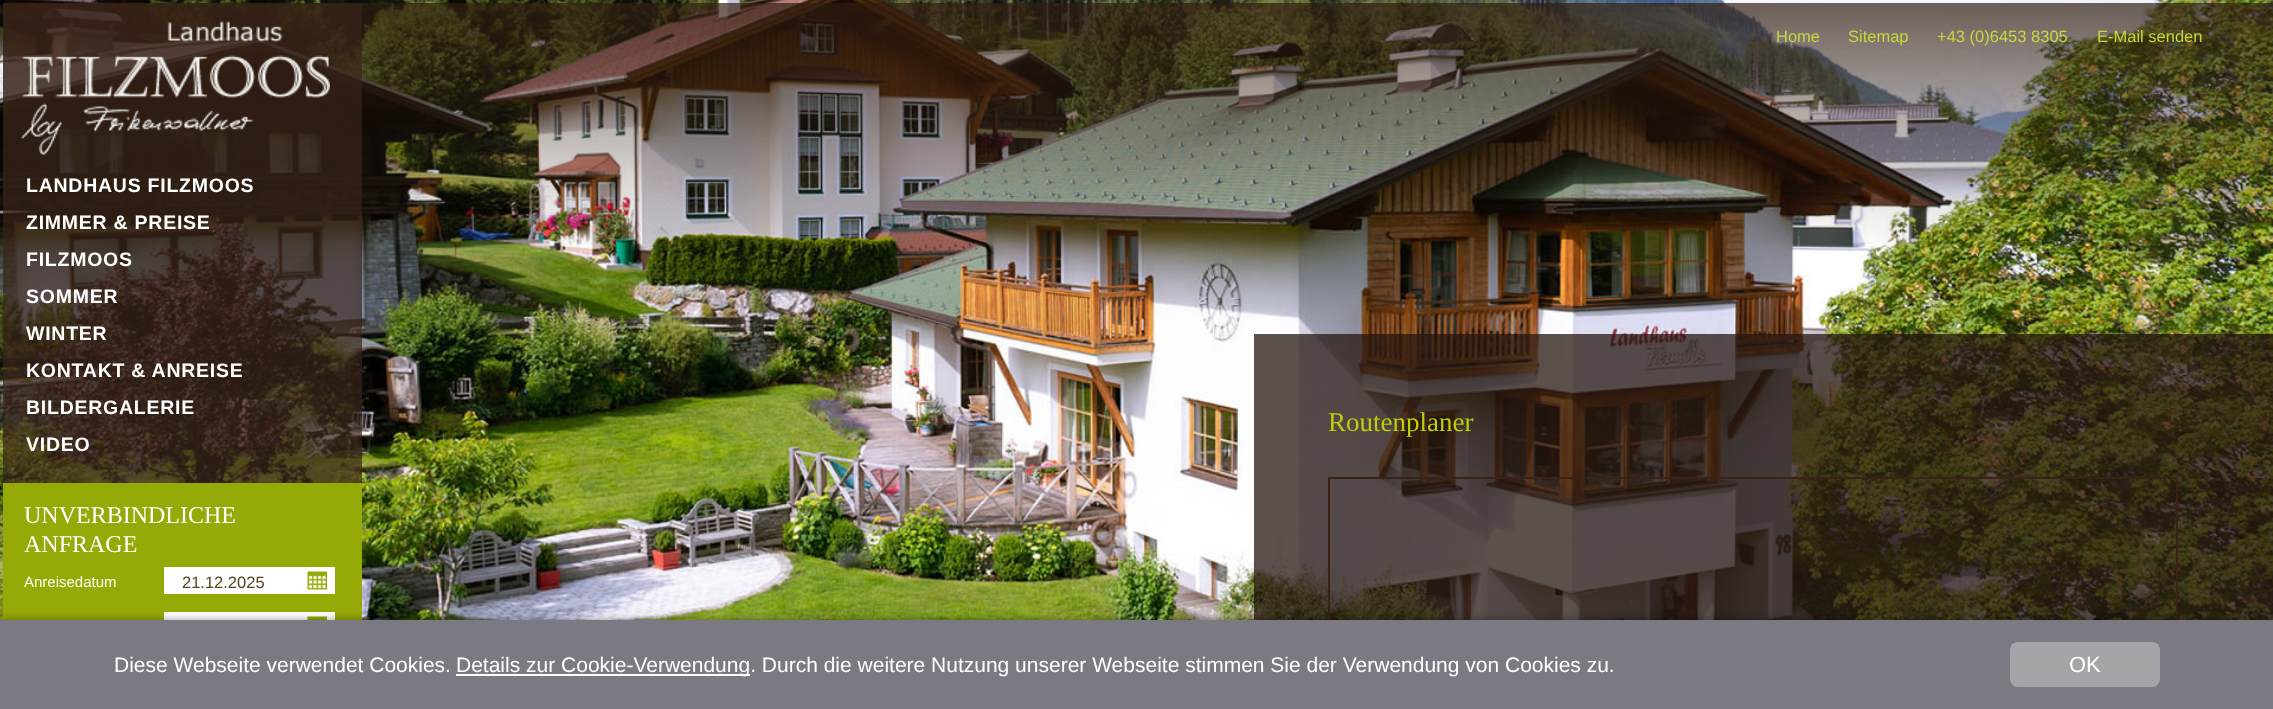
async function draw(canvas) {
	canvas.width = 2273;
	canvas.height = 709;
	const c = canvas.getContext('2d');
	c.miterLimit = 4;
	c.fontKerning = 'normal';
	async function loadImage(src) {
		const img = new Image();
		img.src = src;
		await img.decode();
		return img;
	}

	c.fillStyle = '#fff';
	c.fillRect(0, 0, 2273, 709);
	c.drawImage(await loadImage('img1.png'), 0, 0, 2273, 620);
	c.drawImage(await loadImage('img2.png'), 3, 3, 2270, 241);
	c.font = '16.5px Liberation Sans';
	c.fillStyle = '#c5d83e';
	for (const [text, x, y] of [
		['Home', 1776, 42],
		['Sitemap', 1848, 42],
		['+43 (0)6453 8305', 1937, 42],
		['E-Mail senden', 2097, 42],
	]) {
		c.fillText(text, x, y);
	}
	c.fillStyle = '#392418b3';
	c.fillRect(3, 3, 359, 480);
	c.drawImage(await loadImage('img3.png'), 21, 21, 309, 134);
	c.letterSpacing = '0.75px';
	c.font = 'bold 19.5px Liberation Sans';
	c.fillStyle = '#fff';
	for (const [text, x, y] of [
		['LANDHAUS FILZMOOS', 26, 192],
		['ZIMMER & PREISE', 26, 229],
		['FILZMOOS', 26, 266],
		['SOMMER', 26, 303],
		['WINTER', 26, 340],
		['KONTAKT & ANREISE', 26, 377],
		['BILDERGALERIE', 26, 414],
		['VIDEO', 26, 451],
	]) {
		c.fillText(text, x, y);
	}
	c.fillStyle = '#95a907';
	c.fillRect(3, 483, 359, 137);
	c.letterSpacing = '0px';
	c.font = '24px Liberation Serif';
	c.fillStyle = '#fff';
	c.fillText('UNVERBINDLICHE', 24, 523);
	c.fillText('ANFRAGE', 24, 552);
	c.font = '15px Liberation Sans';
	c.fillStyle = '#fefcf3';
	c.fillText('Anreisedatum', 24, 587);
	c.fillStyle = '#fff';
	c.fillRect(164, 567, 171, 27);
	c.font = '16.5px Liberation Sans';
	c.fillStyle = '#58421d';
	c.fillText('21.12.2025', 182, 588);
	c.drawImage(await loadImage('img4.png'), 307, 571, 20, 19);
	c.fillStyle = '#fff';
	c.fillRect(164, 612, 171, 8);
	c.drawImage(await loadImage('img5.png'), 307, 616, 20, 4);
	c.fillStyle = '#251710bf';
	c.fillRect(1254, 334, 1019, 286);
	c.font = '27px Liberation Serif';
	c.fillStyle = '#b8d008';
	c.fillText('Routenplaner', 1328, 431);
	c.strokeStyle = '#392318';
	c.lineWidth = 2;
	c.strokeRect(1329, 478, 848, 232);
	c.fillStyle = '#00000066';
	c.filter = 'blur(4px)';
	c.beginPath();
	c.rect(0, 620, 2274, 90);
	c.fill();
	c.filter = 'none';
	c.fillStyle = '#7b7a82';
	c.fillRect(0, 620, 2273, 89);
	c.font = '21px Liberation Sans';
	c.fillStyle = '#fff';
	c.fillText('Diese Webseite verwendet Cookies.', 114, 672);
	c.fillRect(456, 674, 294, 2);
	c.fillText('Details zur Cookie-Verwendung. Durch die weitere Nutzung unserer Webseite stimmen Sie der Verwendung von Cookies zu.', 456, 672);
	c.fillStyle = '#a5a5a9';
	c.beginPath();
	c.roundRect(2010, 642, 150, 45, 8);
	c.fill();
	c.font = '22px Liberation Sans';
	c.fillStyle = '#fff';
	c.fillText('OK', 2069, 672);
}

draw(document.querySelector('canvas'));
